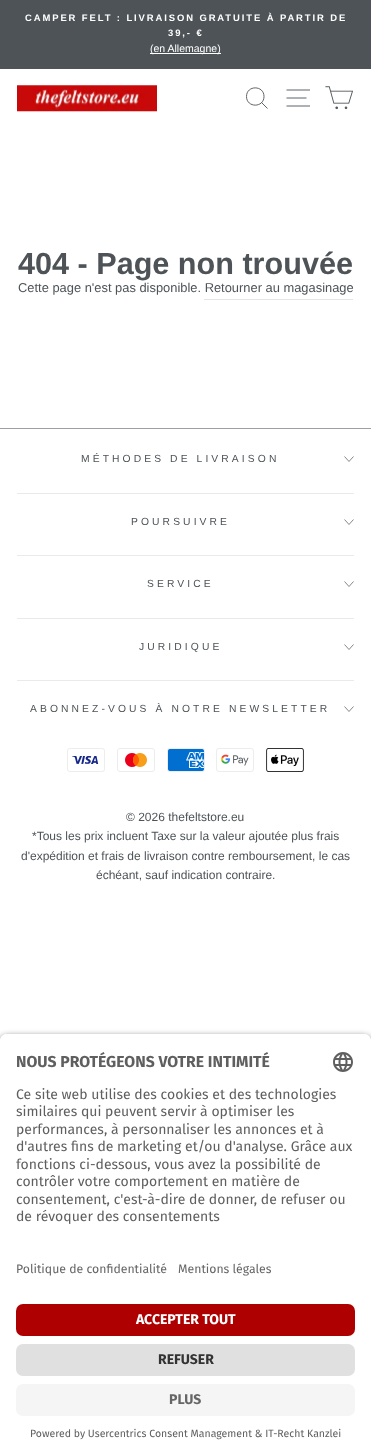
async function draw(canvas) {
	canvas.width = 371;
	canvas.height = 1456;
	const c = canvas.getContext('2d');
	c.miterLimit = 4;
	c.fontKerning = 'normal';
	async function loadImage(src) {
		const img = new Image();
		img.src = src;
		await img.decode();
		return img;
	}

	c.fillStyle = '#fff';
	c.fillRect(0, 0, 371, 1456);
	c.fillStyle = '#4d5357';
	c.fillRect(0, 0, 371, 69);
	c.letterSpacing = '1.9px';
	c.font = 'bold 9.45px Liberation Sans';
	c.fillStyle = '#fff';
	c.fillText('CAMPER FELT : LIVRAISON GRATUITE À PARTIR DE', 25, 21);
	c.fillText('39,- €', 168, 36);
	c.fillRect(150, 53, 71, 1);
	c.letterSpacing = '0px';
	c.font = '10.5px Liberation Sans';
	c.fillText('(en Allemagne)', 150, 52);
	c.drawImage(await loadImage('img1.png'), 17, 85, 140, 27);
	c.beginPath();
	c.moveTo(264, 96.5);
	c.bezierCurveTo(264, 108, 246.5, 108, 246.5, 96.5);
	c.bezierCurveTo(246.5, 85, 264, 85, 264, 96.5);
	c.closePath();
	c.moveTo(267.5, 108.5);
	c.lineTo(261.5, 102.5);
	c.strokeStyle = '#4d5357';
	c.lineWidth = 0.9;
	c.stroke();
	c.beginPath();
	c.moveTo(286.5, 90);
	c.lineTo(310, 90);
	c.moveTo(286.5, 98);
	c.lineTo(306.5, 98);
	c.moveTo(286.5, 106);
	c.lineTo(310, 106);
	c.stroke();
	c.drawImage(await loadImage('img2.png'), 325, 86, 28, 24);
	c.font = 'bold 30.6px Liberation Sans';
	c.fillStyle = '#4d5357';
	c.fillText('404 - Page non trouvée', 18, 274);
	c.font = '12.9px Liberation Sans';
	c.fillText('Cette page n\'est pas disponible. Retourner au magasinage', 18, 292);
	c.fillStyle = '#e4e5e6';
	c.fillRect(204, 299, 149, 1);
	c.fillStyle = '#9d9fa2';
	c.fillRect(0, 428, 371, 1);
	c.letterSpacing = '3.1px';
	c.font = '10.3px Liberation Sans';
	c.fillStyle = '#4d5357';
	c.fillText('MÉTHODES DE LIVRAISON', 81, 462);
	c.beginPath();
	c.moveTo(344.5, 456.5);
	c.lineTo(349, 461.5);
	c.lineTo(353.5, 456.5);
	c.lineWidth = 0.7;
	c.stroke();
	c.fillStyle = '#eaeaeb';
	c.fillRect(17, 493, 337, 1);
	c.fillStyle = '#4d5357';
	c.fillText('POURSUIVRE', 131, 525);
	c.beginPath();
	c.moveTo(344.5, 519.5);
	c.lineTo(349, 524.5);
	c.lineTo(353.5, 519.5);
	c.stroke();
	c.fillStyle = '#eaeaeb';
	c.fillRect(17, 555, 337, 1);
	c.fillStyle = '#4d5357';
	c.fillText('SERVICE', 147, 587);
	c.beginPath();
	c.moveTo(344.5, 581.5);
	c.lineTo(349, 586.5);
	c.lineTo(353.5, 581.5);
	c.stroke();
	c.fillStyle = '#eaeaeb';
	c.fillRect(17, 618, 337, 1);
	c.fillStyle = '#4d5357';
	c.fillText('JURIDIQUE', 139, 650);
	c.beginPath();
	c.moveTo(344.5, 644.5);
	c.lineTo(349, 649.5);
	c.lineTo(353.5, 644.5);
	c.stroke();
	c.fillStyle = '#eaeaeb';
	c.fillRect(17, 680, 337, 1);
	c.fillStyle = '#4d5357';
	c.fillText('ABONNEZ-VOUS À NOTRE NEWSLETTER', 30, 712);
	c.beginPath();
	c.moveTo(344.5, 706.5);
	c.lineTo(349, 711.5);
	c.lineTo(353.5, 706.5);
	c.stroke();
	c.drawImage(await loadImage('img3.png'), 67, 748, 38, 24);
	c.drawImage(await loadImage('img4.png'), 117, 748, 38, 24);
	c.drawImage(await loadImage('img5.png'), 167, 748, 38, 24);
	c.drawImage(await loadImage('img6.png'), 216, 748, 38, 24);
	c.drawImage(await loadImage('img7.png'), 266, 748, 38, 24);
	c.letterSpacing = '0px';
	c.font = '12px Liberation Sans';
	for (const [text, x, y] of [
		['© 2026 thefeltstore.eu', 126, 821],
		['*Tous les prix incluent Taxe sur la valeur ajoutée plus frais', 32, 840],
		['d\'expédition et frais de livraison contre remboursement, le cas', 21, 860],
		['échéant, sauf indication contraire.', 96, 879],
	]) {
		c.fillText(text, x, y);
	}
	c.save();
	c.beginPath();
	c.moveTo(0, 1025);
	c.lineTo(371, 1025);
	c.lineTo(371, 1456);
	c.lineTo(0, 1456);
	c.closePath();
	c.moveTo(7, 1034);
	c.lineTo(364, 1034);
	c.bezierCurveTo(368, 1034, 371, 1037, 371, 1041);
	c.lineTo(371, 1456);
	c.lineTo(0, 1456);
	c.lineTo(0, 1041);
	c.bezierCurveTo(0, 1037, 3, 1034, 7, 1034);
	c.closePath();
	c.clip('evenodd');
	c.fillStyle = '#000000cc';
	c.filter = 'blur(3.5px)';
	c.beginPath();
	c.roundRect(0, 1037, 371, 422, 7);
	c.fill();
	c.filter = 'none';
	c.restore();
	c.fillStyle = '#fff';
	c.beginPath();
	c.roundRect(0, 1034, 371, 212, [7, 7, 0, 0]);
	c.fill();
	c.font = 'bold 15.75px Fira Sans';
	c.fillStyle = '#5f5f5f';
	c.fillText('NOUS PROTÉGEONS VOTRE INTIMITÉ', 16, 1067);
	c.drawImage(await loadImage('img8.png'), 333, 1052, 20, 20);
	c.font = '14px Fira Sans';
	for (const [text, x, y] of [
		['Ce site web utilise des cookies et des technologies', 16, 1099],
		['similaires qui peuvent servir à optimiser les', 16, 1116],
		['performances, à personnaliser les annonces et à', 16, 1134],
		['d\'autres fins de marketing et/ou d\'analyse. Grâce aux', 16, 1151],
		['fonctions ci-dessous, vous avez la possibilité de', 16, 1169],
		['contrôler votre comportement en matière de', 16, 1186],
		['consentement, c\'est-à-dire de donner, de refuser ou', 16, 1204],
		['de révoquer des consentements', 16, 1221],
	]) {
		c.fillText(text, x, y);
	}
	c.font = '12.25px Fira Sans';
	c.fillStyle = '#666';
	c.fillText('Politique de confidentialité', 16, 1273);
	c.fillText('Mentions légales', 178, 1273);
	c.fillStyle = '#ae0000';
	c.beginPath();
	c.roundRect(16, 1304, 339, 32, 7);
	c.fill();
	c.font = 'bold 14px Fira Sans';
	c.fillStyle = '#fff';
	c.fillText('ACCEPTER TOUT', 136, 1324);
	c.fillStyle = '#e0e0e0';
	c.beginPath();
	c.roundRect(16, 1344, 339, 32, 7);
	c.fill();
	c.fillStyle = '#333';
	c.fillText('REFUSER', 158, 1364);
	c.fillStyle = '#f5f5f5';
	c.beginPath();
	c.roundRect(16, 1384, 339, 32, 7);
	c.fill();
	c.fillStyle = '#666';
	c.fillText('PLUS', 169, 1404);
	c.font = '10.5px Fira Sans';
	c.fillStyle = '#5f5f5f';
	c.fillText('Powered by Usercentrics Consent Management & IT-Recht Kanzlei', 30, 1437);
}

draw(document.querySelector('canvas'));
